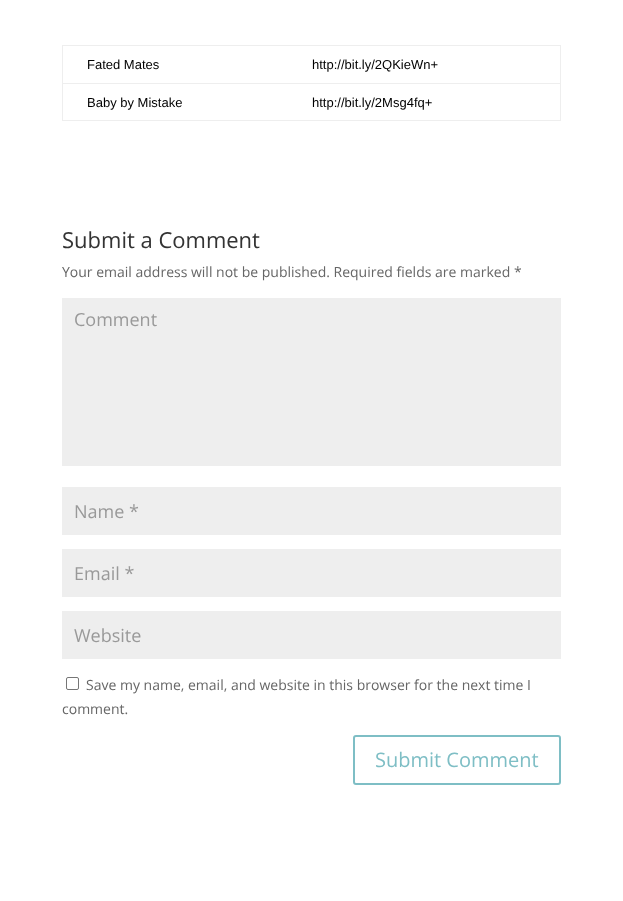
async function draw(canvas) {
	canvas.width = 623;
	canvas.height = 901;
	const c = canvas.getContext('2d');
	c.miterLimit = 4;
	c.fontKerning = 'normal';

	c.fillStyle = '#fff';
	c.fillRect(0, 0, 623, 901);
	for (const [x, y, w, h, color] of [
		[62, 45, 499, 1, '#eee'],
		[560, 45, 1, 76, '#eee'],
		[62, 120, 499, 1, '#eee'],
		[62, 45, 1, 76, '#eee'],
	]) {
		c.fillStyle = color;
		c.fillRect(x, y, w, h);
	}
	c.font = '13px Liberation Sans';
	c.fillStyle = '#000';
	for (const [text, x, y] of [
		['Fated Mates', 87, 69],
		['http://bit.ly/2QKieWn+', 312, 69],
		['Baby by Mistake', 87, 107],
	]) {
		c.fillText(text, x, y);
	}
	c.fillStyle = '#eee';
	c.fillRect(62, 83, 499, 1);
	c.fillStyle = '#000';
	c.fillText('http://bit.ly/2Msg4fq+', 312, 107);
	c.font = '22px Open Sans';
	c.fillStyle = '#333';
	c.fillText('Submit a Comment', 62, 248);
	c.font = '14px Open Sans';
	c.fillStyle = '#666';
	c.fillText('Your email address will not be published. Required fields are marked *', 62, 277);
	c.fillStyle = '#eee';
	c.fillRect(62, 298, 499, 168);
	c.font = '18px Open Sans';
	c.fillStyle = '#999';
	c.fillText('Comment', 74, 326);
	c.fillStyle = '#eee';
	c.fillRect(62, 487, 499, 48);
	c.fillStyle = '#999';
	c.fillText('Name *', 74, 518);
	c.fillStyle = '#eee';
	c.fillRect(62, 549, 499, 48);
	c.fillStyle = '#999';
	c.fillText('Email *', 74, 580);
	c.fillStyle = '#eee';
	c.fillRect(62, 611, 499, 48);
	c.fillStyle = '#999';
	c.fillText('Website', 74, 642);
	c.beginPath();
	c.roundRect(66.5, 677.5, 12, 12, 1.5);
	c.strokeStyle = '#767676';
	c.stroke();
	c.font = '14px Open Sans';
	c.fillStyle = '#666';
	c.fillText('Save my name, email, and website in this browser for the next time I', 86, 690);
	c.fillText('comment.', 62, 714);
	c.beginPath();
	c.roundRect(354, 736, 206, 48, 2);
	c.strokeStyle = '#7ebec5';
	c.lineWidth = 2;
	c.stroke();
	c.font = '20px Open Sans';
	c.fillStyle = '#7ebec5';
	c.fillText('Submit Comment', 375, 767);
}

draw(document.querySelector('canvas'));
